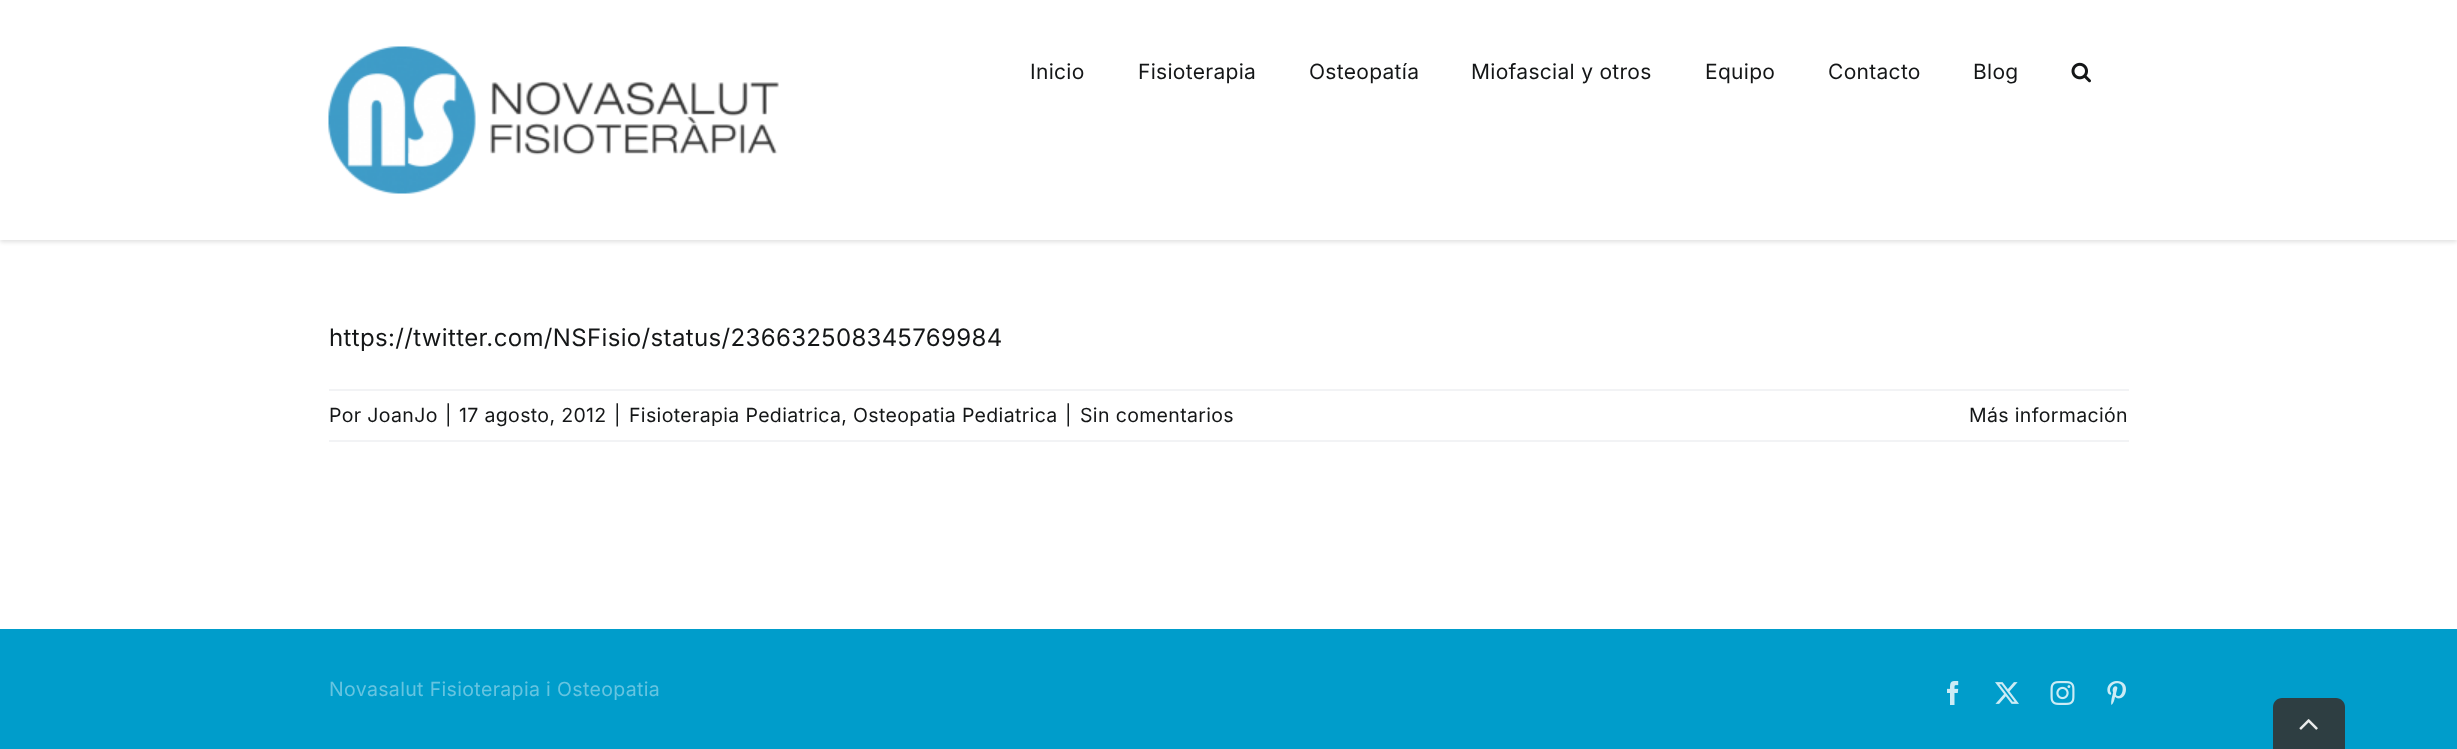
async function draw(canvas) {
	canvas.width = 2457;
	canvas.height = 749;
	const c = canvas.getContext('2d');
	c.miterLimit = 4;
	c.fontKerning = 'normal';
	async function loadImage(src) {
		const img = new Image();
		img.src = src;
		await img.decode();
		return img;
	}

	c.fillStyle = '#fff';
	c.fillRect(0, 0, 2457, 749);
	c.fillStyle = '#0000001f';
	c.filter = 'blur(2px)';
	c.beginPath();
	c.rect(0, 2, 2457, 240);
	c.fill();
	c.filter = 'none';
	c.fillStyle = '#fff';
	c.fillRect(0, 0, 2457, 240);
	c.drawImage(await loadImage('img1.png'), 328, 46, 451, 148);
	c.letterSpacing = '0.3px';
	c.font = '21px Inter';
	c.fillStyle = '#141617';
	for (const [text, x, y] of [
		['Inicio', 1030, 79],
		['Fisioterapia', 1138, 79],
		['Osteopatía', 1309, 79],
		['Miofascial y otros', 1471, 79],
		['Equipo', 1705, 79],
		['Contacto', 1828, 79],
		['Blog', 1973, 79],
	]) {
		c.fillText(text, x, y);
	}
	c.drawImage(await loadImage('img2.png'), 2071, 62, 20, 21);
	c.letterSpacing = '0.35px';
	c.font = '24px Inter';
	c.fillText('https://twitter.com/NSFisio/status/236632508345769984', 329, 346);
	c.fillStyle = '#f2f3f5';
	c.fillRect(329, 389, 1800, 2);
	c.fillRect(329, 440, 1800, 2);
	c.font = '19.5px Inter';
	c.fillStyle = '#141617';
	for (const [text, x, y] of [
		['Por JoanJo', 329, 422],
		['|', 445, 422],
		['17 agosto, 2012', 459, 422],
		['|', 614, 422],
		['Fisioterapia Pediatrica, Osteopatia Pediatrica', 629, 422],
		['|', 1065, 422],
		['Sin comentarios', 1080, 422],
		['Más información', 1969, 422],
	]) {
		c.fillText(text, x, y);
	}
	c.fillStyle = '#009dcb';
	c.fillRect(0, 629, 2457, 120);
	c.fillStyle = '#66c4e0';
	c.fillText('Novasalut Fisioterapia i Osteopatia', 329, 696);
	c.drawImage(await loadImage('img3.png'), 1947, 681, 12, 24);
	c.drawImage(await loadImage('img4.png'), 1995, 682, 24, 22);
	c.drawImage(await loadImage('img5.png'), 2050, 681, 25, 24);
	c.drawImage(await loadImage('img6.png'), 2107, 681, 19, 24);
	c.fillStyle = '#2e3e42';
	c.beginPath();
	c.moveTo(2282, 698);
	c.lineTo(2336, 698);
	c.bezierCurveTo(2341, 698, 2345, 702, 2345, 707);
	c.lineTo(2345, 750);
	c.lineTo(2273, 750);
	c.lineTo(2273, 707);
	c.bezierCurveTo(2273, 702, 2277, 698, 2282, 698);
	c.closePath();
	c.fill();
	c.drawImage(await loadImage('img7.png'), 2299, 719, 19, 11);
}

draw(document.querySelector('canvas'));
